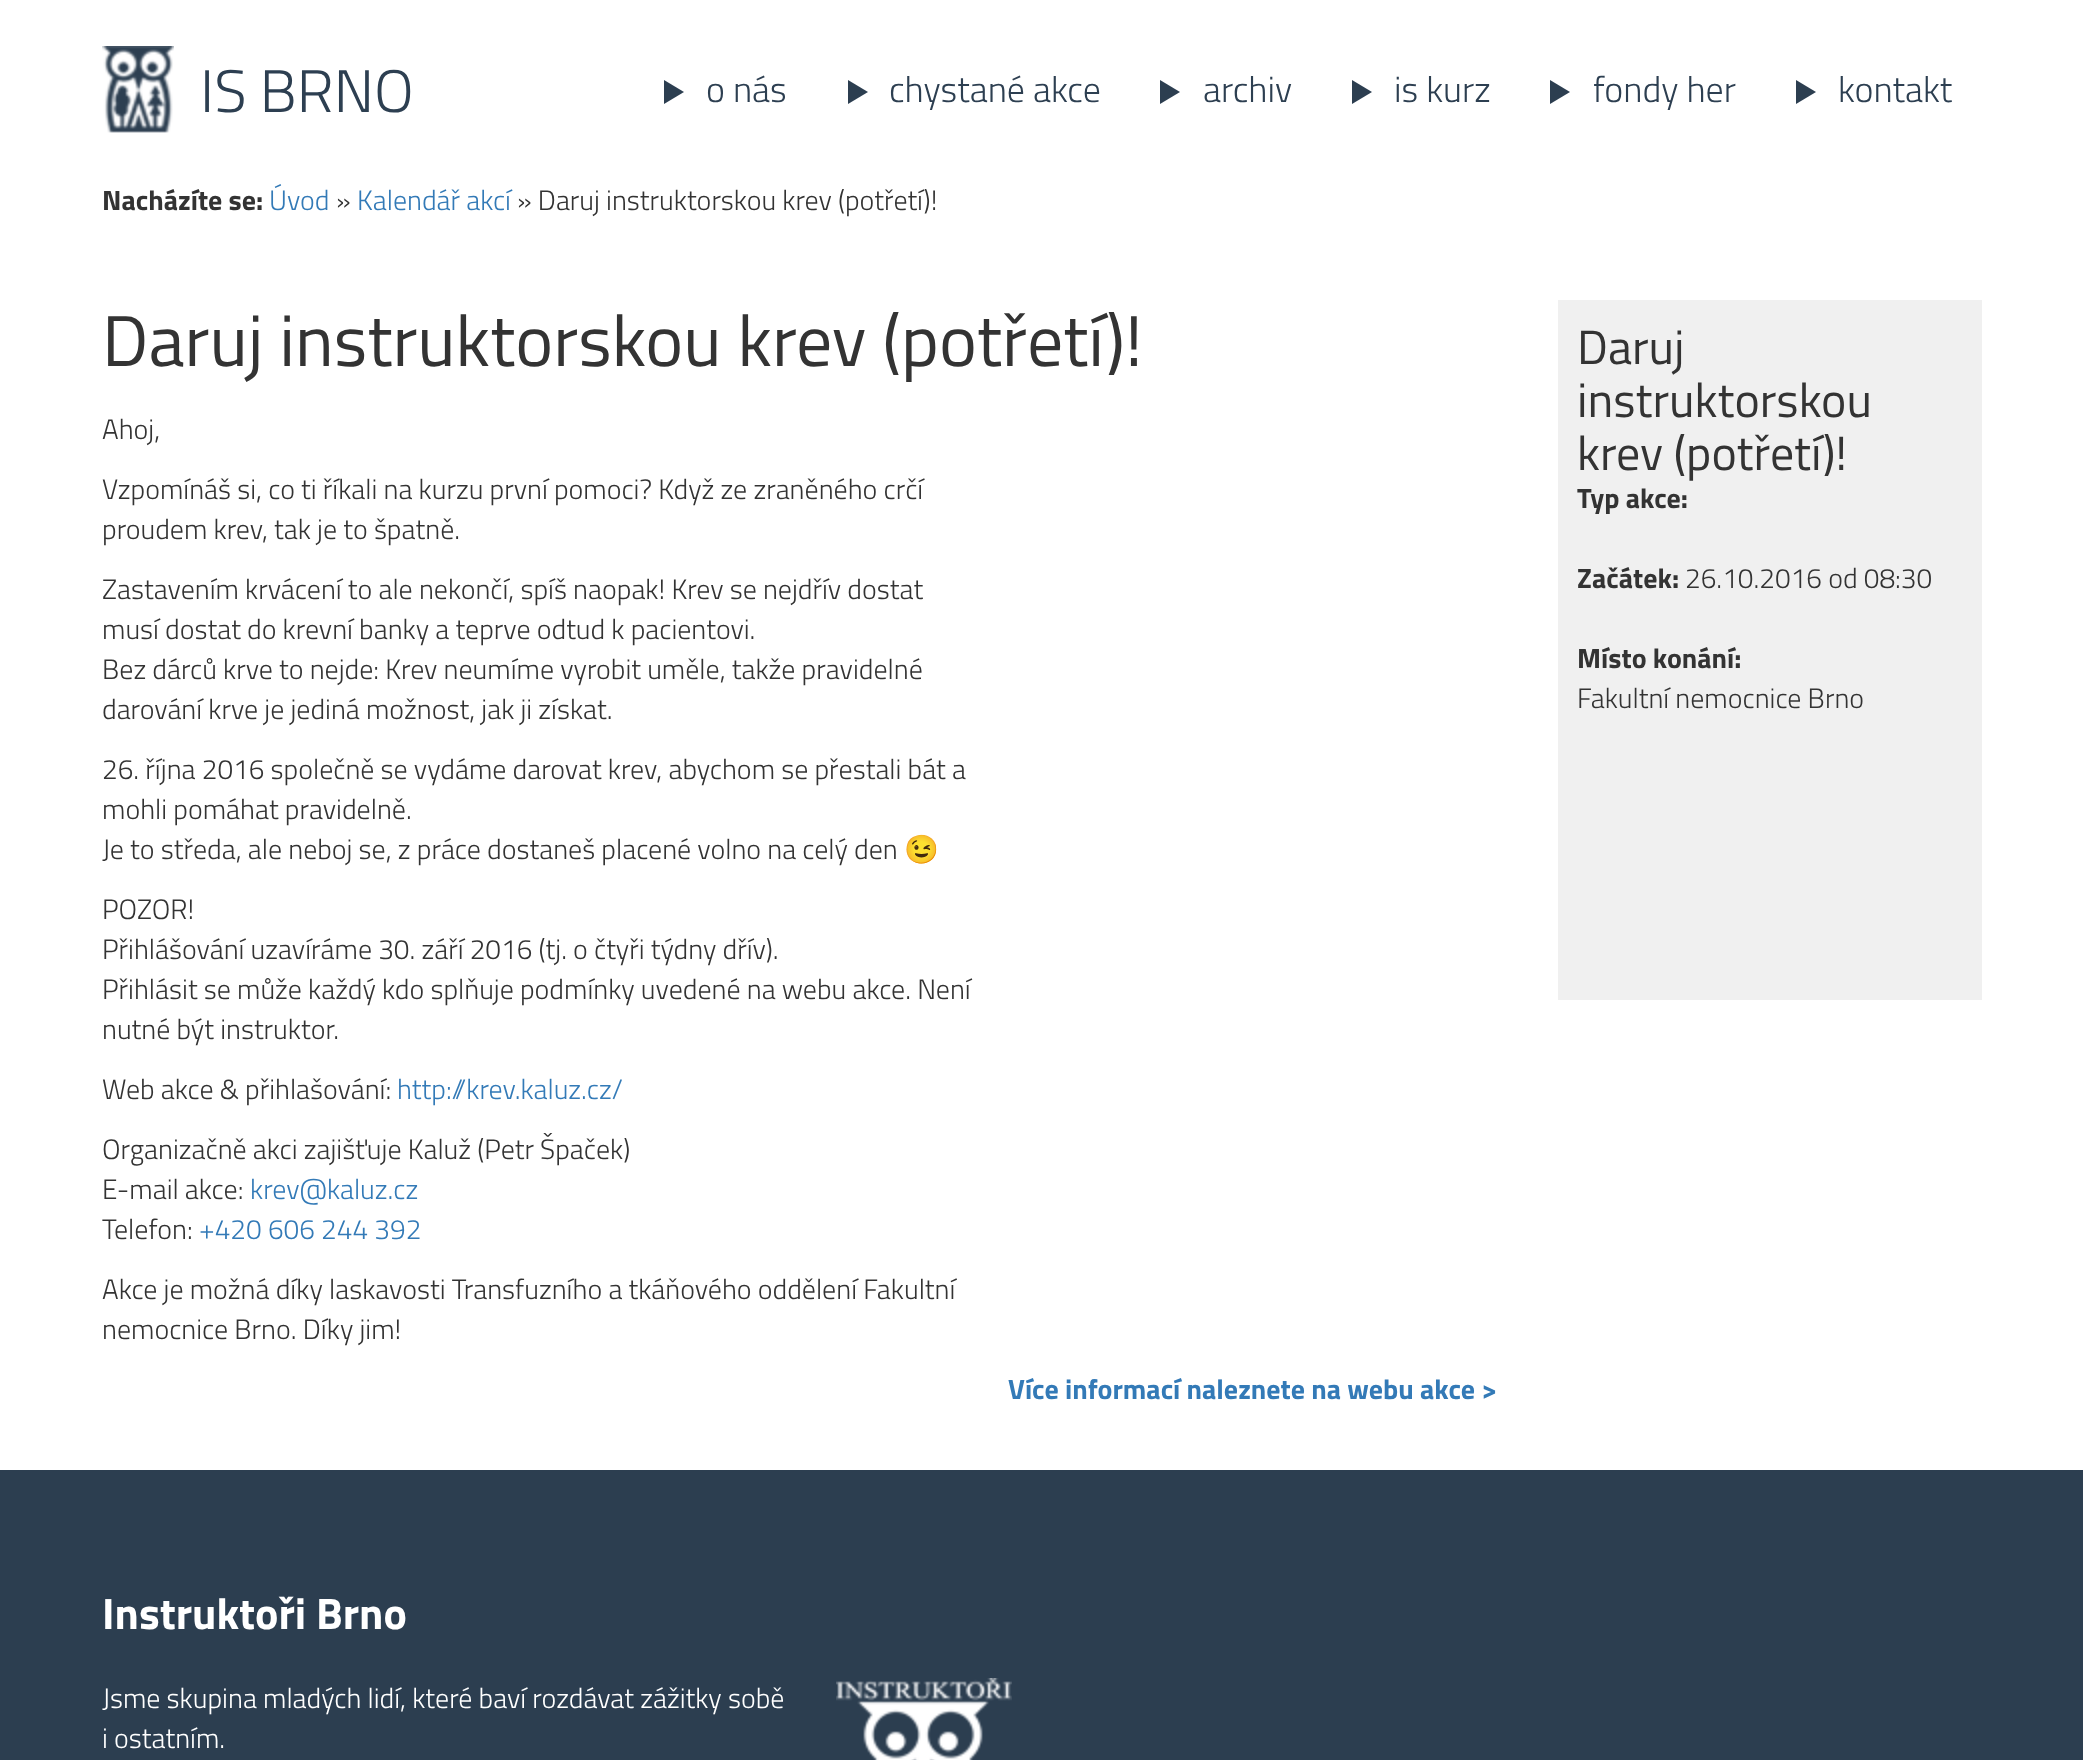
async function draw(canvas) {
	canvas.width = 2083;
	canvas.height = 1760;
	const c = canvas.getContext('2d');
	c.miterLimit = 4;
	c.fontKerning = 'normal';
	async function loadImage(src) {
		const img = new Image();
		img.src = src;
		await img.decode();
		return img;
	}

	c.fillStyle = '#fff';
	c.fillRect(0, 0, 2083, 1760);
	c.drawImage(await loadImage('img1.png'), 102, 46, 72, 87);
	c.font = '300 60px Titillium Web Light';
	c.fillStyle = '#2d3f51';
	c.fillText('IS BRNO', 200, 112);
	c.fillStyle = '#2c3e50';
	c.beginPath();
	c.moveTo(664, 104);
	c.lineTo(664, 80);
	c.lineTo(684, 92);
	c.closePath();
	c.fill();
	c.font = '300 36px Titillium Web Light';
	c.fillStyle = '#2d3f51';
	c.fillText('o nás', 706, 102);
	c.fillStyle = '#2c3e50';
	c.beginPath();
	c.moveTo(848, 104);
	c.lineTo(848, 80);
	c.lineTo(868, 92);
	c.closePath();
	c.fill();
	c.fillStyle = '#2d3f51';
	c.fillText('chystané akce', 889, 102);
	c.fillStyle = '#2c3e50';
	c.beginPath();
	c.moveTo(1160, 104);
	c.lineTo(1160, 80);
	c.lineTo(1180, 92);
	c.closePath();
	c.fill();
	c.fillStyle = '#2d3f51';
	c.fillText('archiv', 1203, 102);
	c.fillStyle = '#2c3e50';
	c.beginPath();
	c.moveTo(1352, 104);
	c.lineTo(1352, 80);
	c.lineTo(1372, 92);
	c.closePath();
	c.fill();
	c.fillStyle = '#2d3f51';
	c.fillText('is kurz', 1394, 102);
	c.fillStyle = '#2c3e50';
	c.beginPath();
	c.moveTo(1550, 104);
	c.lineTo(1550, 80);
	c.lineTo(1570, 92);
	c.closePath();
	c.fill();
	c.fillStyle = '#2d3f51';
	c.fillText('fondy her', 1593, 102);
	c.fillStyle = '#2c3e50';
	c.beginPath();
	c.moveTo(1796, 104);
	c.lineTo(1796, 80);
	c.lineTo(1816, 92);
	c.closePath();
	c.fill();
	c.fillStyle = '#2d3f51';
	c.fillText('kontakt', 1838, 102);
	c.font = 'bold 28px Titillium Web';
	c.fillStyle = '#333';
	c.fillText('Nacházíte se:', 102, 210);
	c.font = '300 28px Titillium Web Light';
	c.fillStyle = '#337ab7';
	c.fillText('Úvod', 269, 210);
	c.fillStyle = '#333';
	c.fillText('»', 336, 210);
	c.fillStyle = '#337ab7';
	c.fillText('Kalendář akcí', 357, 210);
	c.fillStyle = '#333';
	c.fillText('» Daruj instruktorskou krev (potřetí)!', 517, 210);
	c.font = '72px Titillium Web';
	c.fillText('Daruj instruktorskou krev (potřetí)!', 102, 366);
	c.font = '300 28px Titillium Web Light';
	for (const [text, x, y] of [
		['Ahoj,', 102, 439],
		['Vzpomínáš si, co ti říkali na kurzu první pomoci? Když ze zraněného crčí', 102, 499],
		['proudem krev, tak je to špatně.', 102, 539],
		['Zastavením krvácení to ale nekončí, spíš naopak! Krev se nejdřív dostat', 102, 599],
		['musí dostat do krevní banky a teprve odtud k pacientovi.', 102, 639],
		['Bez dárců krve to nejde: Krev neumíme vyrobit uměle, takže pravidelné', 102, 679],
		['darování krve je jediná možnost, jak ji získat.', 102, 719],
		['26. října 2016 společně se vydáme darovat krev, abychom se přestali bát a', 102, 779],
		['mohli pomáhat pravidelně.', 102, 819],
		['Je to středa, ale neboj se, z práce dostaneš placené volno na celý den', 102, 859],
	]) {
		c.fillText(text, x, y);
	}
	c.font = '28px Noto Color Emoji';
	c.fillText('😉', 904, 859);
	c.font = '300 28px Titillium Web Light';
	for (const [text, x, y] of [
		['POZOR!', 102, 919],
		['Přihlášování uzavíráme 30. září 2016 (tj. o čtyři týdny dřív).', 102, 959],
		['Přihlásit se může každý kdo splňuje podmínky uvedené na webu akce. Není', 102, 999],
		['nutné být instruktor.', 102, 1039],
		['Web akce & přihlašování:', 102, 1099],
	]) {
		c.fillText(text, x, y);
	}
	c.fillStyle = '#337ab7';
	c.fillText('http://krev.kaluz.cz/', 397, 1099);
	c.fillStyle = '#333';
	c.fillText('Organizačně akci zajišťuje Kaluž (Petr Špaček)', 102, 1159);
	c.fillText('E-mail akce:', 102, 1199);
	c.fillStyle = '#337ab7';
	c.fillText('krev@kaluz.cz', 250, 1199);
	c.fillStyle = '#333';
	c.fillText('Telefon:', 102, 1239);
	c.fillStyle = '#337ab7';
	c.fillText('+420 606 244 392', 199, 1239);
	c.fillStyle = '#333';
	c.fillText('Akce je možná díky laskavosti Transfuzního a tkáňového oddělení Fakultní', 102, 1299);
	c.fillText('nemocnice Brno. Díky jim!', 102, 1339);
	c.font = 'bold 28px Titillium Web';
	c.fillStyle = '#337ab7';
	c.fillText('Více informací naleznete na webu akce >', 1008, 1399);
	c.fillStyle = '#f0f0f0';
	c.fillRect(1558, 300, 424, 700);
	c.font = '48px Titillium Web';
	c.fillStyle = '#333';
	for (const [text, x, y] of [
		['Daruj', 1577, 364],
		['instruktorskou', 1577, 417],
		['krev (potřetí)!', 1577, 470],
	]) {
		c.fillText(text, x, y);
	}
	c.font = 'bold 28px Titillium Web';
	c.fillText('Typ akce:', 1577, 508);
	c.fillText('Začátek:', 1577, 588);
	c.font = '300 28px Titillium Web Light';
	c.fillText('26.10.2016 od 08:30', 1685, 588);
	c.font = 'bold 28px Titillium Web';
	c.fillText('Místo konání:', 1577, 668);
	c.font = '300 28px Titillium Web Light';
	c.fillText('Fakultní nemocnice Brno', 1577, 708);
	c.fillStyle = '#2c3e50';
	c.fillRect(0, 1470, 2083, 290);
	c.font = 'bold 44px Titillium Web';
	c.fillStyle = '#fff';
	c.fillText('Instruktoři Brno', 102, 1629);
	c.font = '300 28px Titillium Web Light';
	c.fillText('Jsme skupina mladých lidí, které baví rozdávat zážitky sobě', 102, 1708);
	c.drawImage(await loadImage('img2.png'), 836, 1678, 176, 82);
	c.fillText('i ostatním.', 102, 1748);
}

draw(document.querySelector('canvas'));
